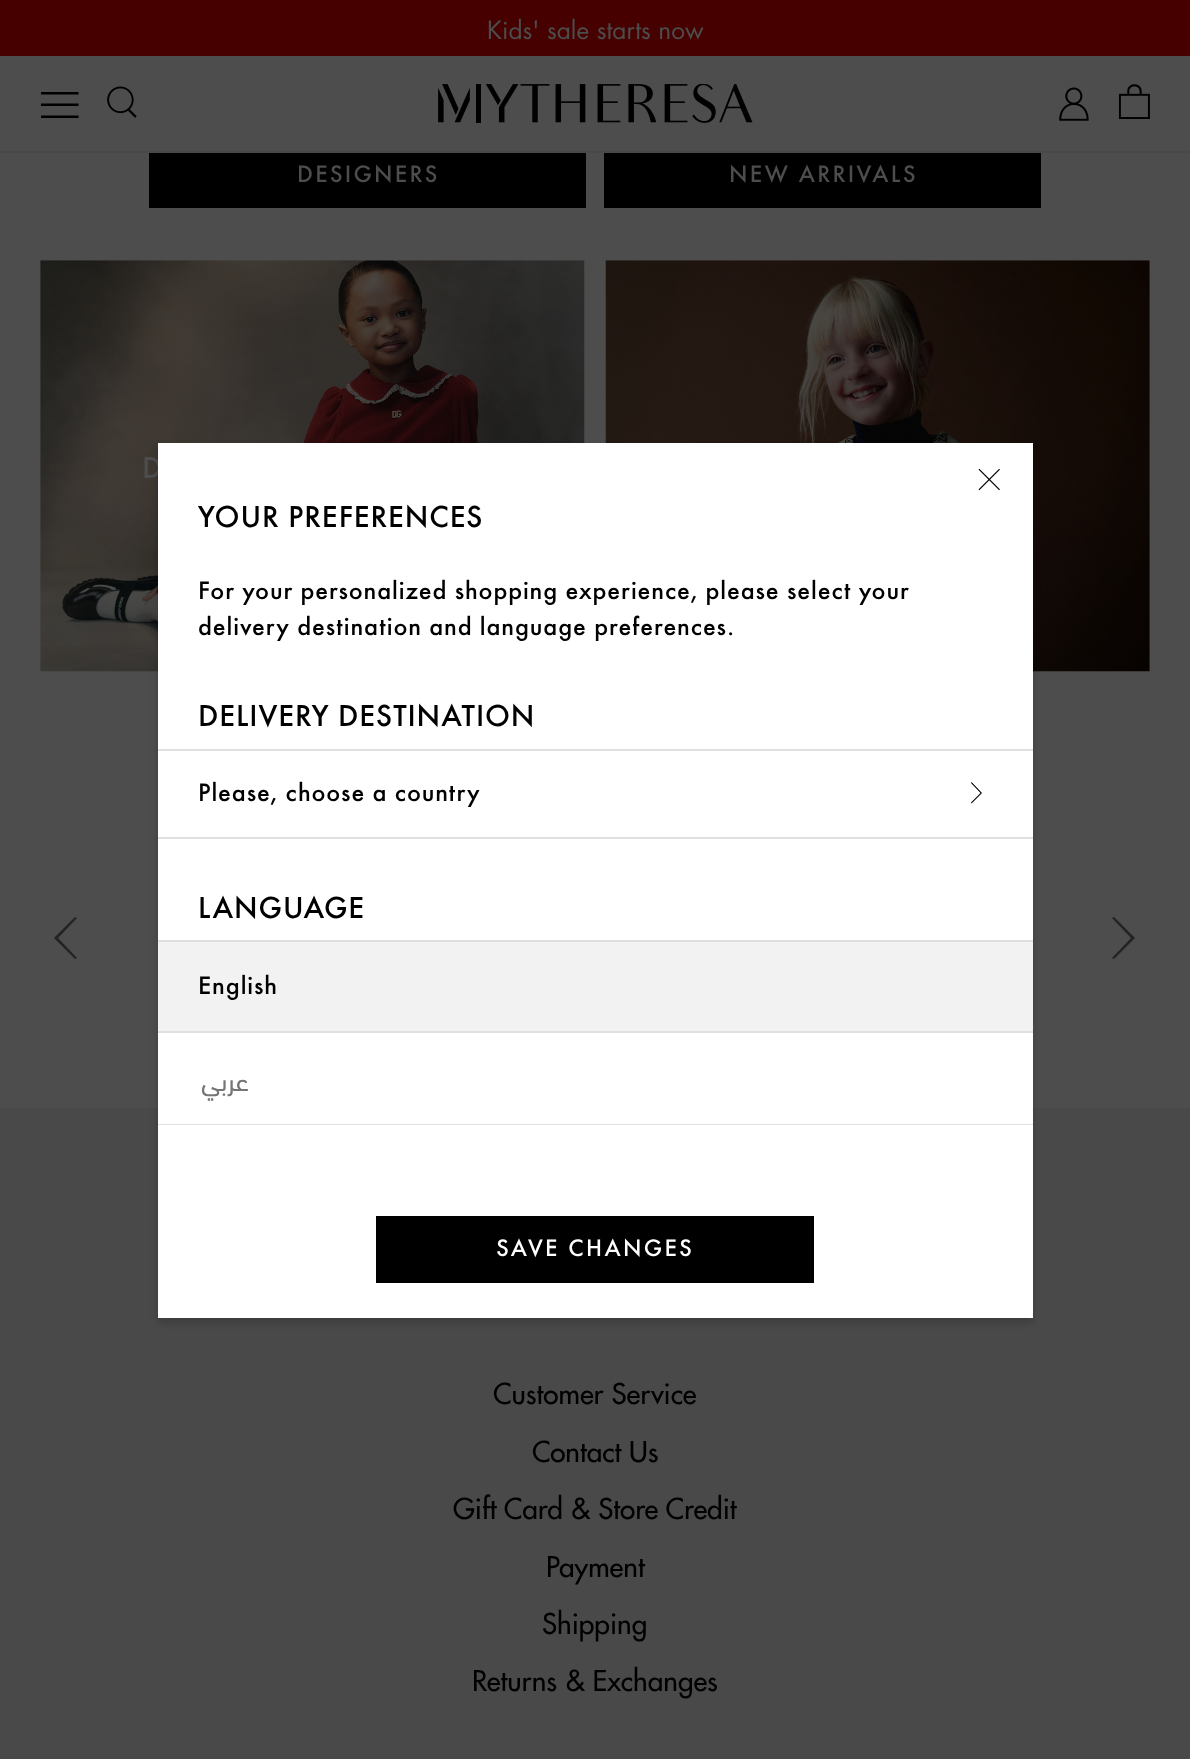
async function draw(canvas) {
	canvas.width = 1190;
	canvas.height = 1759;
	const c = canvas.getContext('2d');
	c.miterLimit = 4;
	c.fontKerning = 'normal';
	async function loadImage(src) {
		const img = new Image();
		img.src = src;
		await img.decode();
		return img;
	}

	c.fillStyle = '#4d4d4d';
	c.fillRect(0, 0, 1190, 1759);
	c.fillStyle = '#470000';
	c.fillRect(0, 0, 1190, 56);
	c.font = '24.5px Futura';
	c.fillStyle = '#4d4d4d';
	c.fillText('Kids\' sale starts now', 487, 39);
	c.fillStyle = '#494949';
	c.fillRect(0, 151, 1190, 2);
	c.fillStyle = '#000';
	c.beginPath();
	c.moveTo(41, 103.5);
	c.lineTo(78.5, 103.5);
	c.lineTo(78.5, 106);
	c.lineTo(41, 106);
	c.closePath();
	c.moveTo(41, 118);
	c.lineTo(41, 115.5);
	c.lineTo(78.5, 115.5);
	c.lineTo(78.5, 118);
	c.closePath();
	c.moveTo(41, 92);
	c.lineTo(78.5, 92);
	c.lineTo(78.5, 94.5);
	c.lineTo(41, 94.5);
	c.closePath();
	c.fill();
	c.drawImage(await loadImage('img1.png'), 107, 86, 30, 32);
	c.drawImage(await loadImage('img2.png'), 438, 84, 315, 39);
	c.drawImage(await loadImage('img3.png'), 1059, 87, 30, 34);
	c.drawImage(await loadImage('img4.png'), 1118, 84, 32, 35);
	c.fillRect(149, 153, 437, 55);
	c.letterSpacing = '2.25px';
	c.font = '24.75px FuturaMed';
	c.fillStyle = '#4d4d4d';
	c.fillText('DESIGNERS', 297, 182);
	c.fillStyle = '#000';
	c.fillRect(604, 153, 437, 55);
	c.fillStyle = '#4d4d4d';
	c.fillText('NEW ARRIVALS', 729, 182);
	c.drawImage(await loadImage('img5.png'), 40, 260, 545, 412);
	c.letterSpacing = '0.85px';
	c.font = '31.6px FuturaMed';
	c.fillText('D', 142, 478);
	c.drawImage(await loadImage('img6.png'), 605, 260, 545, 412);
	c.fillStyle = '#494949';
	c.fillRect(0, 1108, 1190, 651);
	c.fillStyle = '#0000002b';
	c.filter = 'blur(3.5px)';
	c.beginPath();
	c.rect(158, 448, 875, 875);
	c.fill();
	c.filter = 'none';
	c.fillStyle = '#fff';
	c.fillRect(158, 443, 875, 875);
	c.drawImage(await loadImage('img7.png'), 978, 468, 22, 23);
	c.fillStyle = '#000';
	c.fillText('YOUR PREFERENCES', 198, 527);
	c.font = '26.3px FuturaMed';
	c.fillText('For your personalized shopping experience, please select your', 198, 599);
	c.fillText('delivery destination and language preferences.', 198, 635);
	c.font = '31.6px FuturaMed';
	c.fillText('DELIVERY DESTINATION', 198, 726);
	c.fillStyle = '#dfdfdf';
	c.fillRect(158, 749, 875, 2);
	c.fillRect(158, 837, 875, 2);
	c.font = '26.3px FuturaMed';
	c.fillStyle = '#000';
	c.fillText('Please, choose a country', 198, 801);
	c.beginPath();
	c.moveTo(971.5, 803.5);
	c.lineTo(971, 802.5);
	c.lineTo(980.5, 793);
	c.lineTo(971, 783);
	c.lineTo(971.5, 782);
	c.lineTo(982, 793);
	c.closePath();
	c.fill();
	c.font = '31.6px FuturaMed';
	c.fillText('LANGUAGE', 198, 918);
	for (const [x, y, w, h, color] of [
		[158, 942, 875, 89, '#f2f2f2'],
		[158, 940, 875, 2, '#dfdfdf'],
		[158, 1031, 875, 2, '#dfdfdf'],
	]) {
		c.fillStyle = color;
		c.fillRect(x, y, w, h);
	}
	c.font = '26.3px FuturaMed';
	c.fillStyle = '#000';
	c.fillText('English', 198, 994);
	c.fillStyle = '#dfdfdf';
	c.fillRect(158, 1124, 875, 1);
	c.direction = 'rtl';
	c.font = '26.3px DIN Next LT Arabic';
	c.fillStyle = '#757575';
	c.fillText('عربي', 249, 1091);
	c.fillStyle = '#000';
	c.fillRect(376, 1216, 438, 67);
	c.letterSpacing = '2.25px';
	c.direction = 'ltr';
	c.font = '24.75px FuturaMed';
	c.fillStyle = '#fff';
	c.fillText('SAVE CHANGES', 496, 1256);
	c.fillStyle = '#232323';
	c.beginPath();
	c.moveTo(54, 938);
	c.lineTo(75, 917);
	c.lineTo(77, 918);
	c.lineTo(58, 938);
	c.lineTo(77, 958);
	c.lineTo(75, 959);
	c.closePath();
	c.fill();
	c.beginPath();
	c.moveTo(1114, 959);
	c.lineTo(1112, 958);
	c.lineTo(1131, 938);
	c.lineTo(1112, 918);
	c.lineTo(1114, 917);
	c.lineTo(1135, 938);
	c.closePath();
	c.fill();
	c.letterSpacing = '0px';
	c.font = '500 28px Futura';
	c.fillStyle = '#000';
	for (const [text, x, y] of [
		['Customer Service', 493, 1404],
		['Contact Us', 532, 1462],
		['Gift Card & Store Credit', 453, 1519],
		['Payment', 546, 1577],
		['Shipping', 542, 1634],
		['Returns & Exchanges', 472, 1691],
	]) {
		c.fillText(text, x, y);
	}
}

draw(document.querySelector('canvas'));
